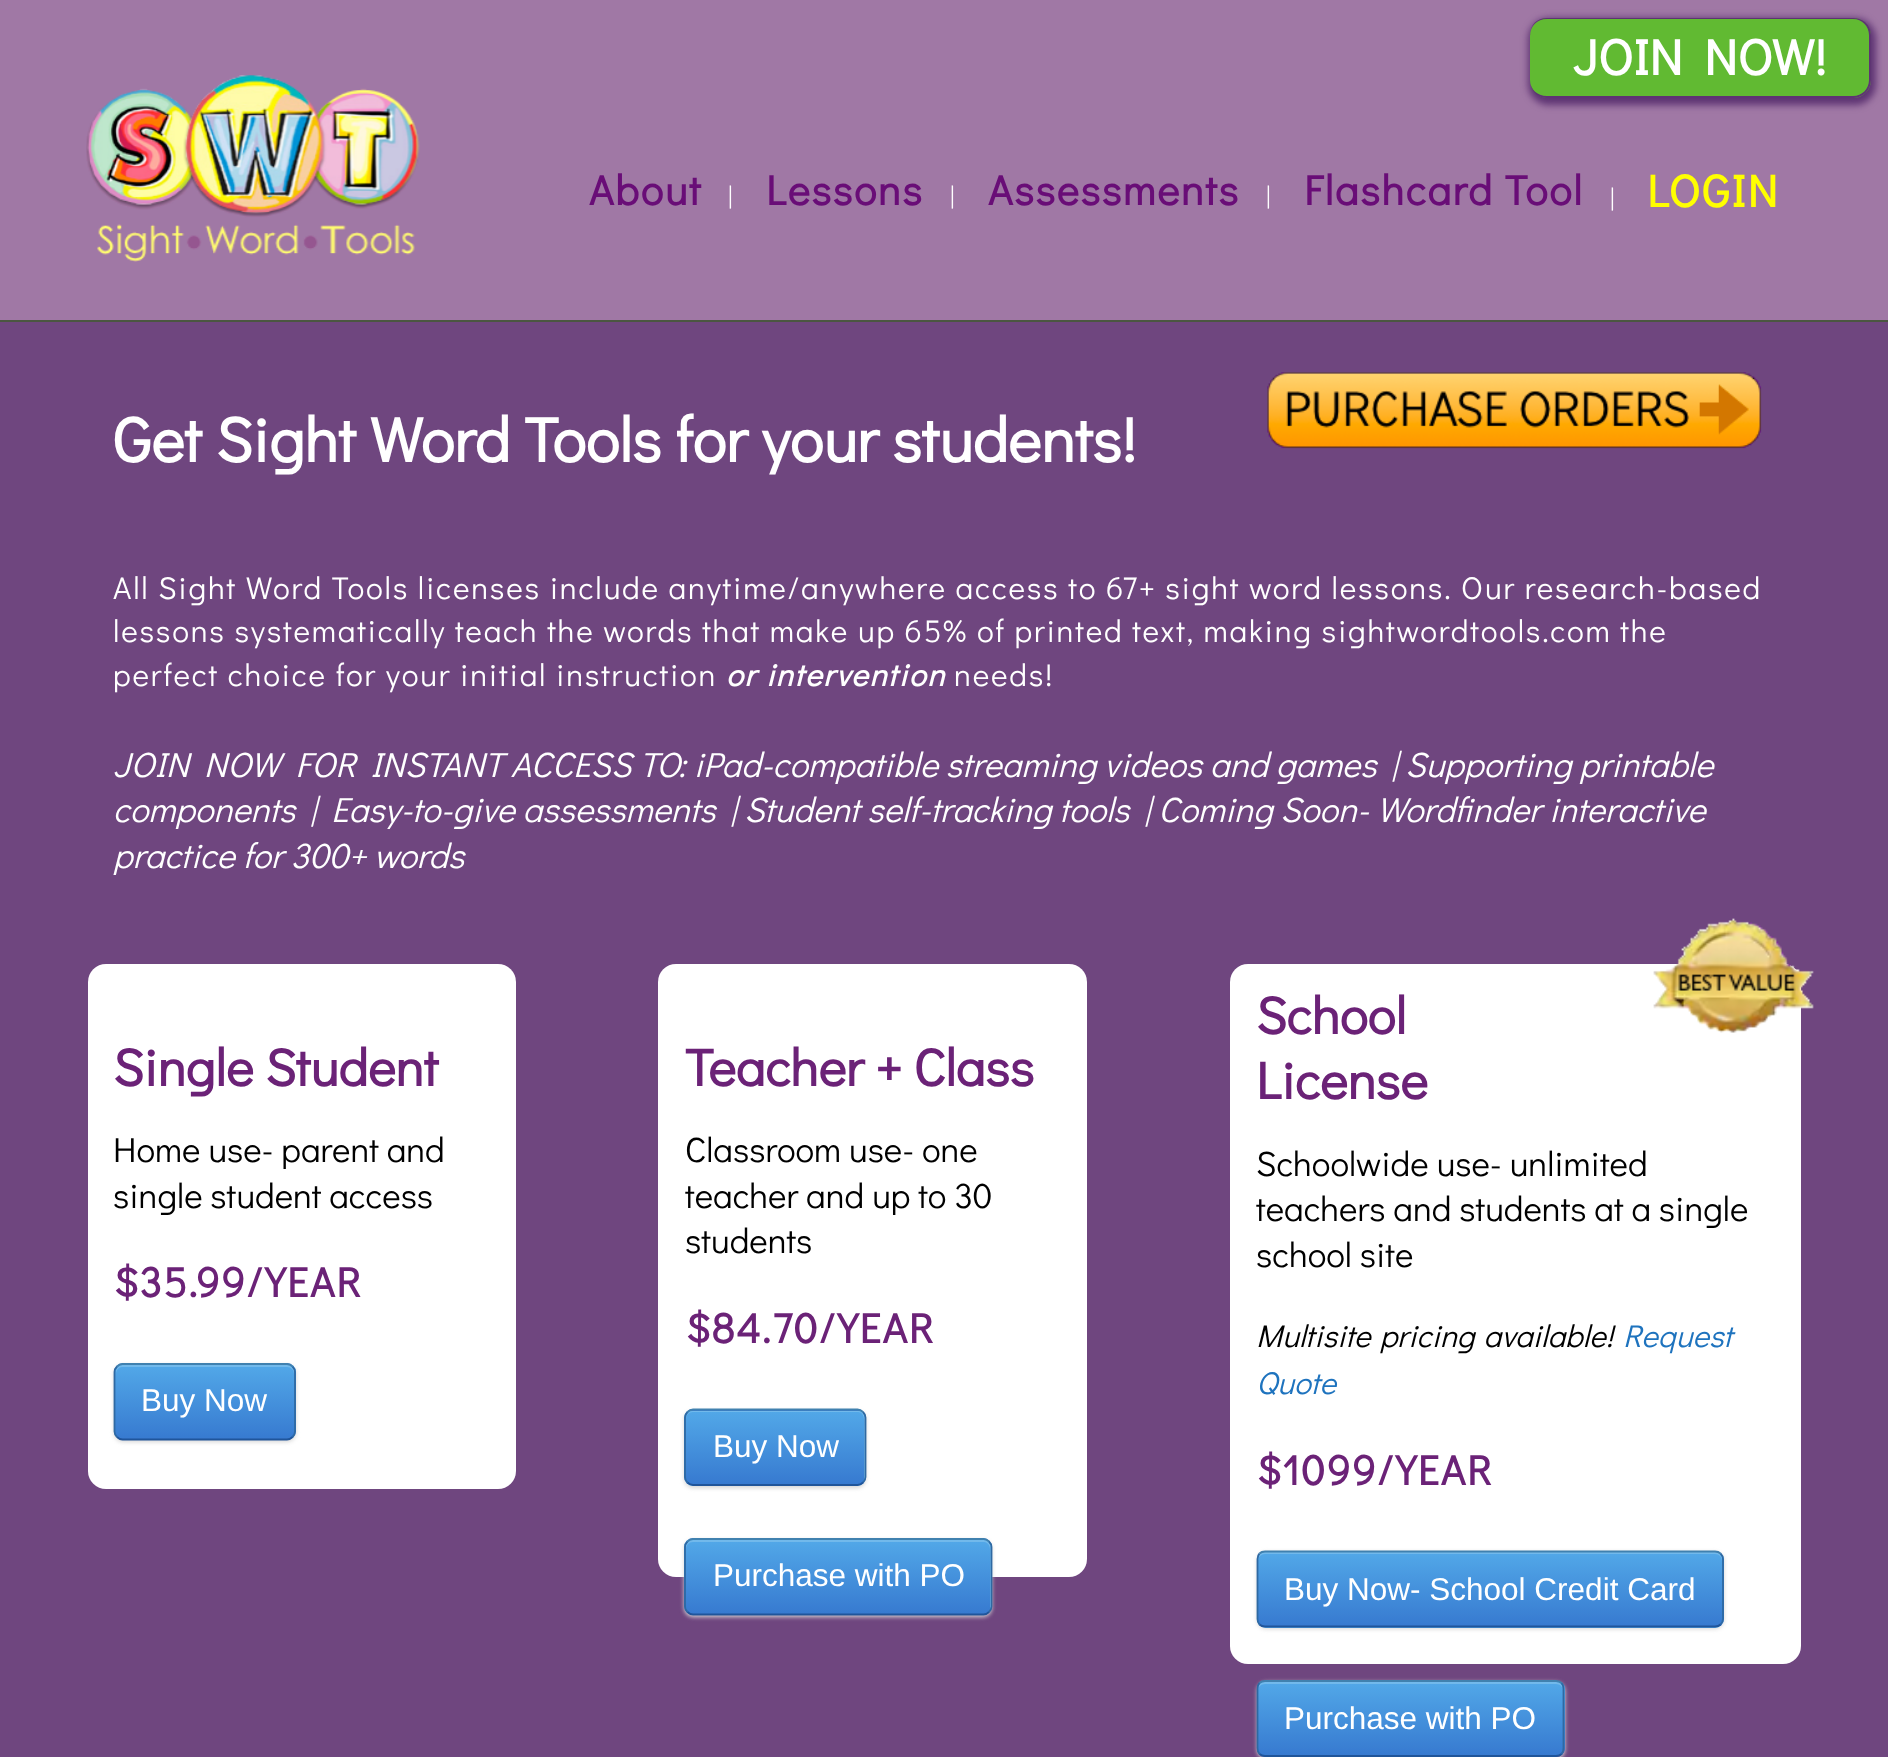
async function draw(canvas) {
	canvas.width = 1888;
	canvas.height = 1757;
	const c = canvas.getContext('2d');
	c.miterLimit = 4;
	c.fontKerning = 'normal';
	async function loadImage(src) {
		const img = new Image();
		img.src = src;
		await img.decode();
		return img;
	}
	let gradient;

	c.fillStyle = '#6f467f';
	c.fillRect(0, 0, 1888, 1757);
	c.fillStyle = '#a078a5';
	c.fillRect(0, 0, 1888, 320);
	c.fillStyle = '#5e3473';
	c.filter = 'blur(3.5px)';
	c.beginPath();
	c.roundRect(1528, 18, 348, 87, 21);
	c.fill();
	c.filter = 'none';
	c.fillStyle = '#61ba32';
	c.beginPath();
	c.roundRect(1530, 18, 341, 80, 18);
	c.fill();
	c.fillStyle = '#5e3473';
	c.beginPath();
	c.moveTo(1547, 18);
	c.lineTo(1853, 18);
	c.bezierCurveTo(1863, 18, 1871, 25, 1871, 35);
	c.lineTo(1871, 80);
	c.bezierCurveTo(1871, 90, 1863, 98, 1853, 98);
	c.lineTo(1547, 98);
	c.bezierCurveTo(1537, 98, 1530, 90, 1530, 80);
	c.lineTo(1530, 35);
	c.bezierCurveTo(1530, 25, 1537, 18, 1547, 18);
	c.closePath();
	c.moveTo(1547, 19);
	c.lineTo(1853, 19);
	c.bezierCurveTo(1862, 19, 1869, 26, 1869, 35);
	c.lineTo(1869, 80);
	c.bezierCurveTo(1869, 89, 1862, 96, 1853, 96);
	c.lineTo(1547, 96);
	c.bezierCurveTo(1537, 96, 1530, 89, 1530, 80);
	c.lineTo(1530, 35);
	c.bezierCurveTo(1530, 26, 1537, 19, 1547, 19);
	c.closePath();
	c.fill('evenodd');
	c.font = 'bold 50.5px Didact Gothic';
	c.fillStyle = '#fff';
	c.fillText('JOIN NOW!', 1573, 75);
	c.fillStyle = '#4b5641';
	c.fillRect(0, 320, 1888, 2);
	c.drawImage(await loadImage('img1.png'), 86, 75, 334, 187);
	c.letterSpacing = '1.75px';
	c.font = 'bold 42px Didact Gothic';
	c.fillStyle = '#690d77';
	c.fillText('About', 589, 205);
	c.letterSpacing = '0px';
	c.font = '26px Didact Gothic';
	c.fillStyle = '#fff';
	c.fillText('|', 728, 205);
	c.letterSpacing = '1.75px';
	c.font = 'bold 42px Didact Gothic';
	c.fillStyle = '#690d77';
	c.fillText('Lessons', 766, 205);
	c.letterSpacing = '0px';
	c.font = '26px Didact Gothic';
	c.fillStyle = '#fff';
	c.fillText('|', 950, 205);
	c.letterSpacing = '1.75px';
	c.font = 'bold 42px Didact Gothic';
	c.fillStyle = '#690d77';
	c.fillText('Assessments', 988, 205);
	c.letterSpacing = '0px';
	c.font = '26px Didact Gothic';
	c.fillStyle = '#fff';
	c.fillText('|', 1266, 205);
	c.letterSpacing = '1.75px';
	c.font = 'bold 42px Didact Gothic';
	c.fillStyle = '#690d77';
	c.fillText('Flashcard Tool', 1304, 205);
	c.letterSpacing = '0px';
	c.font = '26px Didact Gothic';
	c.fillStyle = '#fff';
	c.fillText('|', 1610, 207);
	c.letterSpacing = '1.75px';
	c.font = 'bold 45.5px Didact Gothic';
	c.fillStyle = '#ff0';
	c.fillText('LOGIN', 1647, 207);
	c.letterSpacing = '0px';
	c.font = 'bold 63px Didact Gothic';
	c.fillStyle = '#fff';
	c.fillText('Get Sight Word Tools for your students!', 113, 462);
	c.drawImage(await loadImage('img2.png'), 1267, 372, 495, 77);
	c.letterSpacing = '1.75px';
	c.font = '31.5px Didact Gothic';
	for (const [text, x, y] of [
		['All Sight Word Tools licenses include anytime/anywhere access to 67+ sight word lessons. Our research-based', 113, 599],
		['lessons systematically teach the words that make up 65% of printed text, making sightwordtools.com the', 113, 642],
		['perfect choice for your initial instruction', 113, 686],
	]) {
		c.fillText(text, x, y);
	}
	c.font = 'italic bold 31.5px Didact Gothic';
	c.fillText('or intervention', 726, 686);
	c.font = '31.5px Didact Gothic';
	c.fillText('needs!', 954, 686);
	c.letterSpacing = '0px';
	c.font = 'italic 35px Didact Gothic';
	for (const [text, x, y] of [
		['JOIN NOW FOR INSTANT ACCESS TO: iPad-compatible streaming videos and games | Supporting printable', 113, 777],
		['components | Easy-to-give assessments | Student self-tracking tools | Coming Soon- Wordfinder interactive', 113, 822],
		['practice for 300+ words', 113, 868],
	]) {
		c.fillText(text, x, y);
	}
	c.beginPath();
	c.roundRect(88, 964, 428, 525, 18);
	c.fill();
	c.font = 'bold 52.5px Didact Gothic';
	c.fillStyle = '#6b2277';
	c.fillText('Single Student', 113, 1086);
	c.font = '35px Didact Gothic';
	c.fillStyle = '#000';
	c.fillText('Home use- parent and', 113, 1162);
	c.fillText('single student access', 113, 1208);
	c.letterSpacing = '1.75px';
	c.font = 'bold 42px Didact Gothic';
	c.fillStyle = '#6b2277';
	c.fillText('$35.99/YEAR', 113, 1297);
	c.fillStyle = '#d6d6d6';
	c.filter = 'blur(2px)';
	c.beginPath();
	c.roundRect(114, 1365, 182, 77, 9);
	c.fill();
	c.filter = 'none';
	c.save();
	c.beginPath();
	c.roundRect(114, 1363, 182, 77, 9);
	c.clip();
	gradient = c.createLinearGradient(205, 1292, 205, 1365);
	gradient.addColorStop(0, '#52a8e8');
	gradient.addColorStop(1, '#377ad0');
	c.fillStyle = gradient;
	c.fillRect(114, 1363, 182, 2);
	gradient = c.createLinearGradient(205, 1365, 205, 1439);
	gradient.addColorStop(0, '#52a8e8');
	gradient.addColorStop(1, '#377ad0');
	c.fillStyle = gradient;
	c.fillRect(114, 1365, 182, 74);
	c.restore();
	c.fillStyle = '#72b9eb';
	c.beginPath();
	c.moveTo(122, 1367);
	c.lineTo(287, 1367);
	c.bezierCurveTo(291, 1367, 294, 1370, 294, 1374);
	c.lineTo(294, 1372);
	c.bezierCurveTo(294, 1368, 291, 1365, 287, 1365);
	c.lineTo(123, 1365);
	c.bezierCurveTo(119, 1365, 116, 1368, 116, 1372);
	c.lineTo(116, 1374);
	c.bezierCurveTo(116, 1370, 119, 1367, 122, 1367);
	c.closePath();
	c.fill();
	c.beginPath();
	c.moveTo(117, 1366.5);
	c.bezierCurveTo(118.5, 1365, 120.5, 1364, 122.5, 1364);
	c.lineTo(287, 1364);
	c.bezierCurveTo(289, 1364, 291, 1365, 292.5, 1366.5);
	c.strokeStyle = '#4081af';
	c.lineWidth = 1.8;
	c.stroke();
	c.beginPath();
	c.moveTo(292.5, 1366.5);
	c.bezierCurveTo(294, 1368, 295, 1370, 295, 1372);
	c.lineTo(295, 1431.5);
	c.bezierCurveTo(295, 1433.5, 294, 1435.5, 292.5, 1437);
	c.strokeStyle = '#2e69a3';
	c.stroke();
	c.beginPath();
	c.moveTo(292.5, 1437);
	c.bezierCurveTo(291, 1438.5, 289, 1439.5, 287, 1439.5);
	c.lineTo(122.5, 1439.5);
	c.bezierCurveTo(120.5, 1439.5, 118.5, 1438.5, 117, 1437);
	c.strokeStyle = '#20559a';
	c.stroke();
	c.beginPath();
	c.moveTo(117, 1437);
	c.bezierCurveTo(115.5, 1435.5, 114.5, 1433.5, 114.5, 1431.5);
	c.lineTo(114.5, 1372);
	c.bezierCurveTo(114.5, 1370, 115.5, 1368, 117, 1366.5);
	c.strokeStyle = '#2e69a3';
	c.stroke();
	c.letterSpacing = '0px';
	c.font = '31.5px Liberation Sans';
	c.fillStyle = '#fff';
	c.fillText('Buy Now', 141, 1411);
	c.beginPath();
	c.roundRect(658, 964, 429, 613, 18);
	c.fill();
	c.font = 'bold 52.5px Didact Gothic';
	c.fillStyle = '#6b2277';
	c.fillText('Teacher + Class', 685, 1086);
	c.font = '35px Didact Gothic';
	c.fillStyle = '#000';
	for (const [text, x, y] of [
		['Classroom use- one', 685, 1162],
		['teacher and up to 30', 685, 1208],
		['students', 685, 1253],
	]) {
		c.fillText(text, x, y);
	}
	c.letterSpacing = '1.75px';
	c.font = 'bold 42px Didact Gothic';
	c.fillStyle = '#6b2277';
	c.fillText('$84.70/YEAR', 685, 1343);
	c.fillStyle = '#d6d6d6';
	c.filter = 'blur(2px)';
	c.beginPath();
	c.roundRect(684, 1411, 182, 77, 9);
	c.fill();
	c.filter = 'none';
	c.save();
	c.beginPath();
	c.roundRect(684, 1409, 182, 77, 9);
	c.clip();
	gradient = c.createLinearGradient(775, 1337, 775, 1411);
	gradient.addColorStop(0, '#52a8e8');
	gradient.addColorStop(1, '#377ad0');
	c.fillStyle = gradient;
	c.fillRect(684, 1409, 182, 2);
	gradient = c.createLinearGradient(775, 1411, 775, 1484);
	gradient.addColorStop(0, '#52a8e8');
	gradient.addColorStop(1, '#377ad0');
	c.fillStyle = gradient;
	c.fillRect(684, 1411, 182, 73);
	gradient = c.createLinearGradient(775, 1484, 775, 1558);
	gradient.addColorStop(0, '#52a8e8');
	gradient.addColorStop(1, '#377ad0');
	c.fillStyle = gradient;
	c.fillRect(684, 1484, 182, 2);
	c.restore();
	c.fillStyle = '#72b9eb';
	c.beginPath();
	c.moveTo(693, 1412);
	c.lineTo(858, 1412);
	c.bezierCurveTo(866, 1412, 864, 1425, 864, 1429);
	c.lineTo(864, 1481);
	c.bezierCurveTo(865, 1480, 865, 1478, 865, 1477);
	c.lineTo(865, 1418);
	c.bezierCurveTo(865, 1414, 862, 1411, 858, 1411);
	c.lineTo(693, 1411);
	c.bezierCurveTo(689, 1411, 686, 1414, 686, 1418);
	c.lineTo(686, 1419);
	c.bezierCurveTo(686, 1415, 689, 1412, 693, 1412);
	c.closePath();
	c.fill();
	c.beginPath();
	c.moveTo(687.5, 1412);
	c.bezierCurveTo(689, 1410.5, 691, 1409.5, 693, 1409.5);
	c.lineTo(857.5, 1409.5);
	c.bezierCurveTo(859.5, 1409.5, 861.5, 1410.5, 863, 1412);
	c.strokeStyle = '#4081af';
	c.stroke();
	c.beginPath();
	c.moveTo(863, 1412);
	c.bezierCurveTo(864.5, 1413.5, 865.5, 1415.5, 865.5, 1417.5);
	c.lineTo(865.5, 1477);
	c.bezierCurveTo(865.5, 1479, 864.5, 1481, 863, 1482.5);
	c.strokeStyle = '#2e69a3';
	c.stroke();
	c.beginPath();
	c.moveTo(863, 1482.5);
	c.bezierCurveTo(861.5, 1484, 859.5, 1485, 857.5, 1485);
	c.lineTo(693, 1485);
	c.bezierCurveTo(691, 1485, 689, 1484, 687.5, 1482.5);
	c.strokeStyle = '#20559a';
	c.stroke();
	c.beginPath();
	c.moveTo(687.5, 1482.5);
	c.bezierCurveTo(686, 1481, 685, 1479, 685, 1477);
	c.lineTo(685, 1417.5);
	c.bezierCurveTo(685, 1415.5, 686, 1413.5, 687.5, 1412);
	c.strokeStyle = '#2e69a3';
	c.stroke();
	c.letterSpacing = '0px';
	c.font = '31.5px Liberation Sans';
	c.fillStyle = '#fff';
	c.fillText('Buy Now', 713, 1457);
	c.fillStyle = '#d6d6d6';
	c.filter = 'blur(2px)';
	c.beginPath();
	c.roundRect(684, 1540, 308, 77, 9);
	c.fill();
	c.filter = 'none';
	c.save();
	c.beginPath();
	c.roundRect(684, 1538, 308, 77, 9);
	c.clip();
	gradient = c.createLinearGradient(838, 1467, 838, 1540);
	gradient.addColorStop(0, '#52a8e8');
	gradient.addColorStop(1, '#377ad0');
	c.fillStyle = gradient;
	c.fillRect(684, 1538, 308, 2);
	gradient = c.createLinearGradient(838, 1540, 838, 1614);
	gradient.addColorStop(0, '#52a8e8');
	gradient.addColorStop(1, '#377ad0');
	c.fillStyle = gradient;
	c.fillRect(684, 1540, 308, 74);
	c.restore();
	c.fillStyle = '#72b9eb';
	c.beginPath();
	c.moveTo(693, 1542);
	c.lineTo(984, 1542);
	c.bezierCurveTo(987, 1542, 990, 1545, 990, 1549);
	c.lineTo(990, 1608);
	c.bezierCurveTo(990, 1610, 990, 1611, 989, 1612);
	c.bezierCurveTo(990, 1611, 991, 1609, 991, 1607);
	c.lineTo(991, 1547);
	c.bezierCurveTo(991, 1543, 988, 1540, 984, 1540);
	c.lineTo(693, 1540);
	c.bezierCurveTo(689, 1540, 686, 1543, 686, 1547);
	c.lineTo(686, 1549);
	c.bezierCurveTo(686, 1545, 689, 1542, 693, 1542);
	c.closePath();
	c.fill();
	c.beginPath();
	c.moveTo(687.5, 1541.5);
	c.bezierCurveTo(689, 1540, 691, 1539, 693, 1539);
	c.lineTo(983.5, 1539);
	c.bezierCurveTo(985.5, 1539, 987.5, 1540, 989, 1541.5);
	c.strokeStyle = '#4081af';
	c.stroke();
	c.beginPath();
	c.moveTo(989, 1541.5);
	c.bezierCurveTo(990.5, 1543, 991.5, 1545, 991.5, 1547);
	c.lineTo(991.5, 1606.5);
	c.bezierCurveTo(991.5, 1608.5, 990.5, 1610.5, 989, 1612);
	c.strokeStyle = '#2e69a3';
	c.stroke();
	c.beginPath();
	c.moveTo(989, 1612);
	c.bezierCurveTo(987.5, 1613.5, 985.5, 1614.5, 983.5, 1614.5);
	c.lineTo(693, 1614.5);
	c.bezierCurveTo(691, 1614.5, 689, 1613.5, 687.5, 1612);
	c.strokeStyle = '#20559a';
	c.stroke();
	c.beginPath();
	c.moveTo(687.5, 1612);
	c.bezierCurveTo(686, 1610.5, 685, 1608.5, 685, 1606.5);
	c.lineTo(685, 1547);
	c.bezierCurveTo(685, 1545, 686, 1543, 687.5, 1541.5);
	c.strokeStyle = '#2e69a3';
	c.stroke();
	c.fillStyle = '#fff';
	c.fillText('Purchase with PO', 713, 1586);
	c.beginPath();
	c.roundRect(1230, 964, 571, 700, 18);
	c.fill();
	c.drawImage(await loadImage('img3.png'), 1653, 918, 161, 115);
	c.font = 'bold 52.5px Didact Gothic';
	c.fillStyle = '#6b2277';
	c.fillText('School', 1256, 1034);
	c.fillText('License', 1256, 1099);
	c.font = '35px Didact Gothic';
	c.fillStyle = '#000';
	for (const [text, x, y] of [
		['Schoolwide use- unlimited', 1256, 1176],
		['teachers and students at a single', 1256, 1221],
		['school site', 1256, 1267],
	]) {
		c.fillText(text, x, y);
	}
	c.wordSpacing = '2px';
	c.font = 'italic 31.5px Didact Gothic';
	c.fillText('Multisite pricing available!', 1256, 1347);
	c.wordSpacing = '0px';
	c.fillStyle = '#1e73be';
	c.fillText('Request', 1623, 1347);
	c.fillText('Quote', 1256, 1394);
	c.letterSpacing = '1.75px';
	c.font = 'bold 42px Didact Gothic';
	c.fillStyle = '#6b2277';
	c.fillText('$1099/YEAR', 1256, 1485);
	c.fillStyle = '#d6d6d6';
	c.filter = 'blur(2px)';
	c.beginPath();
	c.roundRect(1257, 1552, 467, 77, 9);
	c.fill();
	c.filter = 'none';
	c.save();
	c.beginPath();
	c.roundRect(1257, 1551, 467, 77, 9);
	c.clip();
	gradient = c.createLinearGradient(1490, 1552, 1490, 1626);
	gradient.addColorStop(0, '#52a8e8');
	gradient.addColorStop(1, '#377ad0');
	c.fillStyle = gradient;
	c.fillRect(1257, 1552, 467, 74);
	gradient = c.createLinearGradient(1490, 1626, 1490, 1699);
	gradient.addColorStop(0, '#52a8e8');
	gradient.addColorStop(1, '#377ad0');
	c.fillStyle = gradient;
	c.fillRect(1257, 1626, 467, 2);
	c.restore();
	c.fillStyle = '#72b9eb';
	c.beginPath();
	c.moveTo(1265, 1554);
	c.lineTo(1715, 1554);
	c.bezierCurveTo(1719, 1554, 1722, 1557, 1722, 1561);
	c.lineTo(1722, 1559);
	c.bezierCurveTo(1722, 1555, 1719, 1552, 1715, 1552);
	c.lineTo(1265, 1552);
	c.bezierCurveTo(1261, 1552, 1258, 1555, 1258, 1559);
	c.lineTo(1258, 1561);
	c.bezierCurveTo(1258, 1557, 1261, 1554, 1265, 1554);
	c.closePath();
	c.fill();
	c.beginPath();
	c.moveTo(1259.5, 1553.5);
	c.bezierCurveTo(1261, 1552, 1263, 1551.5, 1265, 1551.5);
	c.lineTo(1715, 1551.5);
	c.bezierCurveTo(1717, 1551.5, 1719, 1552, 1720.5, 1553.5);
	c.strokeStyle = '#4081af';
	c.stroke();
	c.beginPath();
	c.moveTo(1720.5, 1553.5);
	c.bezierCurveTo(1722, 1555, 1723, 1557, 1723, 1559);
	c.lineTo(1723, 1619);
	c.bezierCurveTo(1723, 1621, 1722, 1623, 1720.5, 1624.5);
	c.strokeStyle = '#2e69a3';
	c.stroke();
	c.beginPath();
	c.moveTo(1720.5, 1624.5);
	c.bezierCurveTo(1719, 1626, 1717, 1626.5, 1715, 1626.5);
	c.lineTo(1265, 1626.5);
	c.bezierCurveTo(1263, 1626.5, 1261, 1626, 1259.5, 1624.5);
	c.strokeStyle = '#20559a';
	c.stroke();
	c.beginPath();
	c.moveTo(1259.5, 1624.5);
	c.bezierCurveTo(1258, 1623, 1257.5, 1621, 1257.5, 1619);
	c.lineTo(1257.5, 1559);
	c.bezierCurveTo(1257.5, 1557, 1258, 1555, 1259.5, 1553.5);
	c.strokeStyle = '#2e69a3';
	c.stroke();
	c.letterSpacing = '0px';
	c.font = '31.5px Liberation Sans';
	c.fillStyle = '#fff';
	c.fillText('Buy Now- School Credit Card', 1284, 1600);
	c.save();
	c.beginPath();
	c.moveTo(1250, 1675);
	c.lineTo(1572, 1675);
	c.lineTo(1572, 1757);
	c.lineTo(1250, 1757);
	c.closePath();
	c.moveTo(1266, 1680);
	c.lineTo(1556, 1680);
	c.bezierCurveTo(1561, 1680, 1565, 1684, 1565, 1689);
	c.lineTo(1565, 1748);
	c.bezierCurveTo(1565, 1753, 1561, 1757, 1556, 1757);
	c.lineTo(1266, 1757);
	c.bezierCurveTo(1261, 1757, 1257, 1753, 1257, 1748);
	c.lineTo(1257, 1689);
	c.bezierCurveTo(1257, 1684, 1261, 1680, 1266, 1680);
	c.closePath();
	c.clip('evenodd');
	c.fillStyle = '#d6d6d6';
	c.filter = 'blur(2px)';
	c.beginPath();
	c.roundRect(1257, 1682, 308, 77, 9);
	c.fill();
	c.filter = 'none';
	c.restore();
	c.save();
	c.beginPath();
	c.roundRect(1257, 1680, 308, 77, 9);
	c.clip();
	gradient = c.createLinearGradient(1411, 1682, 1411, 1755);
	gradient.addColorStop(0, '#52a8e8');
	gradient.addColorStop(1, '#377ad0');
	c.fillStyle = gradient;
	c.fillRect(1257, 1682, 308, 73);
	c.restore();
	c.fillStyle = '#72b9eb';
	c.beginPath();
	c.moveTo(1265, 1684);
	c.lineTo(1556, 1684);
	c.bezierCurveTo(1560, 1684, 1563, 1687, 1563, 1690);
	c.lineTo(1563, 1689);
	c.bezierCurveTo(1563, 1685, 1560, 1682, 1556, 1682);
	c.lineTo(1265, 1682);
	c.bezierCurveTo(1261, 1682, 1258, 1685, 1258, 1689);
	c.lineTo(1258, 1690);
	c.bezierCurveTo(1258, 1687, 1261, 1684, 1265, 1684);
	c.closePath();
	c.fill();
	c.beginPath();
	c.moveTo(1259.5, 1683);
	c.bezierCurveTo(1261, 1681.5, 1263, 1681, 1265, 1681);
	c.lineTo(1556, 1681);
	c.bezierCurveTo(1558, 1681, 1560, 1681.5, 1561.5, 1683);
	c.strokeStyle = '#4081af';
	c.stroke();
	c.beginPath();
	c.moveTo(1561.5, 1683);
	c.bezierCurveTo(1563, 1684.5, 1563.5, 1686.5, 1563.5, 1689);
	c.lineTo(1563.5, 1748);
	c.bezierCurveTo(1563.5, 1750.5, 1563, 1752.5, 1561.5, 1754);
	c.strokeStyle = '#2e69a3';
	c.stroke();
	c.beginPath();
	c.moveTo(1561.5, 1754);
	c.bezierCurveTo(1560, 1755.5, 1558, 1756, 1556, 1756);
	c.lineTo(1265, 1756);
	c.bezierCurveTo(1263, 1756, 1261, 1755.5, 1259.5, 1754);
	c.strokeStyle = '#20559a';
	c.stroke();
	c.beginPath();
	c.moveTo(1259.5, 1754);
	c.bezierCurveTo(1258, 1752.5, 1257.5, 1750.5, 1257.5, 1748);
	c.lineTo(1257.5, 1689);
	c.bezierCurveTo(1257.5, 1686.5, 1258, 1684.5, 1259.5, 1683);
	c.strokeStyle = '#2e69a3';
	c.stroke();
	c.fillStyle = '#fff';
	c.fillText('Purchase with PO', 1284, 1729);
}

draw(document.querySelector('canvas'));
